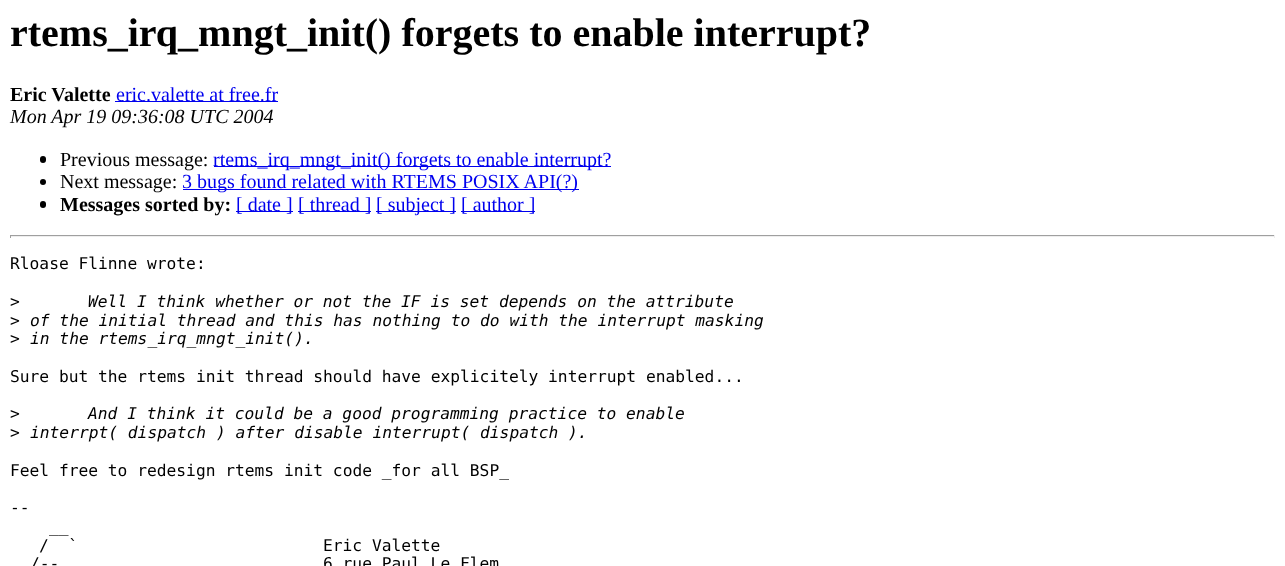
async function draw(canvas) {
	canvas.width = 1285;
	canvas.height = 566;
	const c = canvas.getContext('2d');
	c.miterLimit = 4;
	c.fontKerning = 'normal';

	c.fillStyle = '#fff';
	c.fillRect(0, 0, 1285, 566);
	c.font = 'bold 40px Liberation Serif';
	c.fillStyle = '#000';
	c.fillText('rtems_irq_mngt_init() forgets to enable interrupt?', 10, 46);
	c.font = 'bold 20px Liberation Serif';
	c.fillText('Eric Valette', 10, 101);
	c.fillStyle = '#00e';
	c.fillRect(115, 101, 163, 1);
	c.font = '20px Liberation Serif';
	c.fillText('eric.valette at free.fr', 116, 101);
	c.font = 'italic 20px Liberation Serif';
	c.fillStyle = '#000';
	c.fillText('Mon Apr 19 09:36:08 UTC 2004', 10, 123);
	c.beginPath();
	c.roundRect(40, 156, 6, 7, 3);
	c.fill();
	c.font = '20px Liberation Serif';
	c.fillText('Previous message:', 60, 166);
	c.fillStyle = '#00e';
	c.fillRect(214, 166, 397, 1);
	c.fillText('rtems_irq_mngt_init() forgets to enable interrupt?', 213, 166);
	c.fillStyle = '#000';
	c.beginPath();
	c.arc(43, 182, 3, 0, 2 * Math.PI);
	c.fill();
	c.fillText('Next message:', 60, 188);
	c.fillStyle = '#00e';
	c.fillRect(183, 189, 396, 1);
	c.fillText('3 bugs found related with RTEMS POSIX API(?)', 182, 188);
	c.fillStyle = '#000';
	c.beginPath();
	c.roundRect(40, 201, 6, 7, 3);
	c.fill();
	c.font = 'bold 20px Liberation Serif';
	c.fillText('Messages sorted by:', 60, 211);
	c.fillStyle = '#00e';
	c.fillRect(236, 211, 57, 1);
	c.font = '20px Liberation Serif';
	c.fillText('[ date ]', 236, 211);
	c.fillRect(298, 211, 73, 1);
	c.fillText('[ thread ]', 298, 211);
	c.fillRect(376, 211, 80, 1);
	c.fillText('[ subject ]', 376, 211);
	c.fillRect(461, 211, 74, 1);
	c.fillText('[ author ]', 461, 211);
	for (const [x, y, w, h, color] of [
		[10, 235, 1265, 1, '#9f9f9f'],
		[1274, 235, 1, 3, '#eee'],
		[10, 236, 1265, 1, '#eee'],
		[10, 235, 1, 3, '#9f9f9f'],
	]) {
		c.fillStyle = color;
		c.fillRect(x, y, w, h);
	}
	c.font = '16.25px DejaVu Sans Mono';
	c.fillStyle = '#000';
	c.fillText('Rloase Flinne wrote:', 10, 269);
	c.fillText('>', 10, 307);
	c.font = 'italic 16.25px DejaVu Sans Mono';
	c.fillText('Well I think whether or not the IF is set depends on the attribute', 88, 307);
	c.font = '16.25px DejaVu Sans Mono';
	c.fillText('>', 10, 326);
	c.font = 'italic 16.25px DejaVu Sans Mono';
	c.fillText('of the initial thread and this has nothing to do with the interrupt masking', 30, 326);
	c.font = '16.25px DejaVu Sans Mono';
	c.fillText('>', 10, 344);
	c.font = 'italic 16.25px DejaVu Sans Mono';
	c.fillText('in the rtems_irq_mngt_init().', 30, 344);
	c.font = '16.25px DejaVu Sans Mono';
	c.fillText('Sure but the rtems init thread should have explicitely interrupt enabled...', 10, 382);
	c.fillText('>', 10, 419);
	c.font = 'italic 16.25px DejaVu Sans Mono';
	c.fillText('And I think it could be a good programming practice to enable', 88, 419);
	c.font = '16.25px DejaVu Sans Mono';
	c.fillText('>', 10, 438);
	c.font = 'italic 16.25px DejaVu Sans Mono';
	c.fillText('interrpt( dispatch ) after disable interrupt( dispatch ).', 30, 438);
	c.font = '16.25px DejaVu Sans Mono';
	for (const [text, x, y] of [
		['Feel free to redesign rtems init code _for all BSP_', 10, 476],
		['--', 10, 513],
		['__', 49, 532],
		['/  `', 39, 551],
		['Eric Valette', 323, 551],
		['/--', 30, 569],
		['6 rue Paul Le Flem', 323, 569],
	]) {
		c.fillText(text, x, y);
	}
}

draw(document.querySelector('canvas'));
